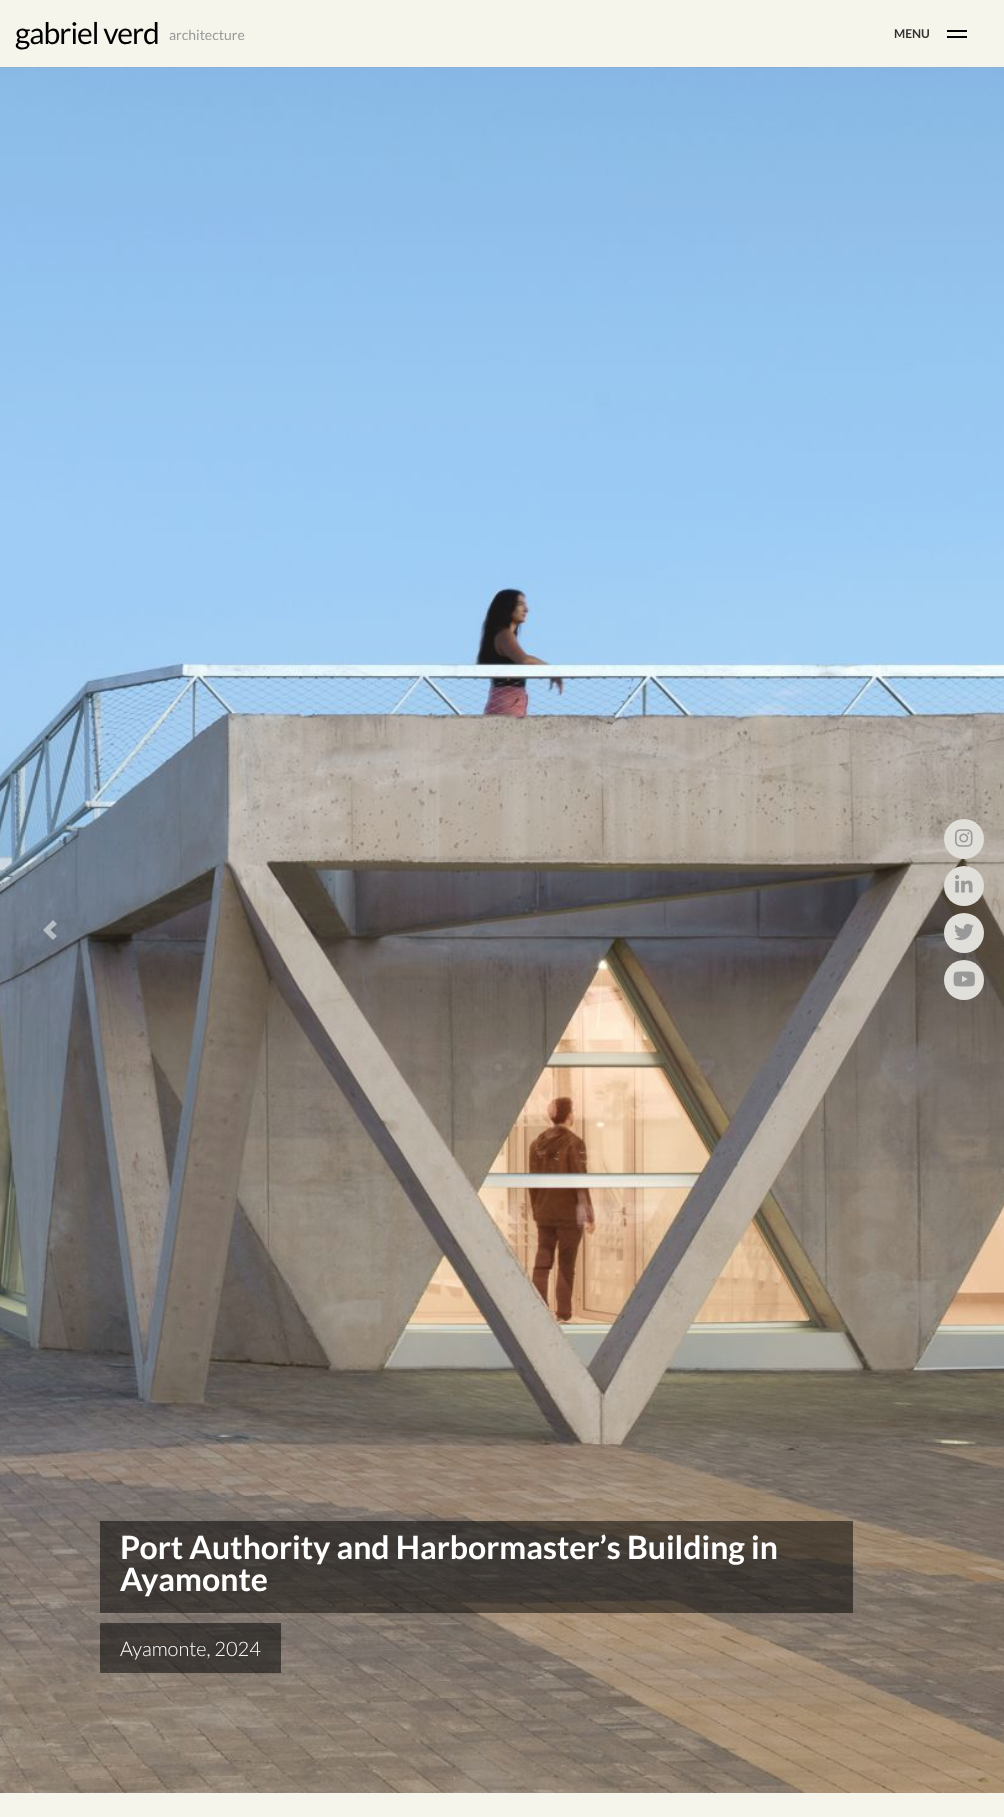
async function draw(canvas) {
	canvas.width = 1004;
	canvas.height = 1817;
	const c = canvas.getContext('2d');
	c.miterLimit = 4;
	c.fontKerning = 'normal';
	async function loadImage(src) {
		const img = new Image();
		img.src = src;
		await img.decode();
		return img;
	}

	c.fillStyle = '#f5f5eb';
	c.fillRect(0, 0, 1004, 1817);
	c.letterSpacing = '-1px';
	c.font = '30px Lato';
	c.fillStyle = '#000';
	c.fillText('gabriel verd', 15, 44);
	c.letterSpacing = '0px';
	c.font = '14px Lato';
	c.fillStyle = '#999';
	c.fillText('architecture', 169, 40);
	c.font = 'bold 12px Lato';
	c.fillStyle = '#323232';
	c.fillText('MENU', 894, 38);
	c.fillStyle = '#000';
	c.fillRect(947, 30, 20, 2);
	c.fillRect(947, 36, 20, 2);
	c.drawImage(await loadImage('img1.png'), 0, 67, 1004, 1726);
	c.fillStyle = '#ffffff80';
	c.beginPath();
	c.moveTo(53, 920);
	c.lineTo(43, 930);
	c.lineTo(53, 940);
	c.lineTo(57, 936);
	c.lineTo(50.5, 930);
	c.lineTo(57, 924);
	c.closePath();
	c.fill();
	c.fillStyle = '#00000080';
	c.fillRect(100, 1521, 753, 92);
	c.font = 'bold 32px Lato';
	c.fillStyle = '#fff';
	c.fillText('Port Authority and Harbormaster’s Building in', 120, 1559);
	c.fillText('Ayamonte', 120, 1591);
	c.fillStyle = '#00000080';
	c.fillRect(100, 1623, 181, 50);
	c.font = '300 20px Lato';
	c.fillStyle = '#fff';
	c.fillText('Ayamonte, 2024', 120, 1656);
	c.fillStyle = '#e0dfd9';
	c.beginPath();
	c.arc(964, 839, 20, 0, 2 * Math.PI);
	c.fill();
	c.drawImage(await loadImage('img2.png'), 955, 829, 18, 18);
	c.beginPath();
	c.arc(964, 886, 20, 0, 2 * Math.PI);
	c.fill();
	c.drawImage(await loadImage('img3.png'), 955, 875, 18, 18);
	c.beginPath();
	c.arc(964, 933, 20, 0, 2 * Math.PI);
	c.fill();
	c.drawImage(await loadImage('img4.png'), 954, 923, 20, 18);
	c.beginPath();
	c.arc(964, 980, 20, 0, 2 * Math.PI);
	c.fill();
	c.drawImage(await loadImage('img5.png'), 953, 971, 22, 16);
}

draw(document.querySelector('canvas'));
